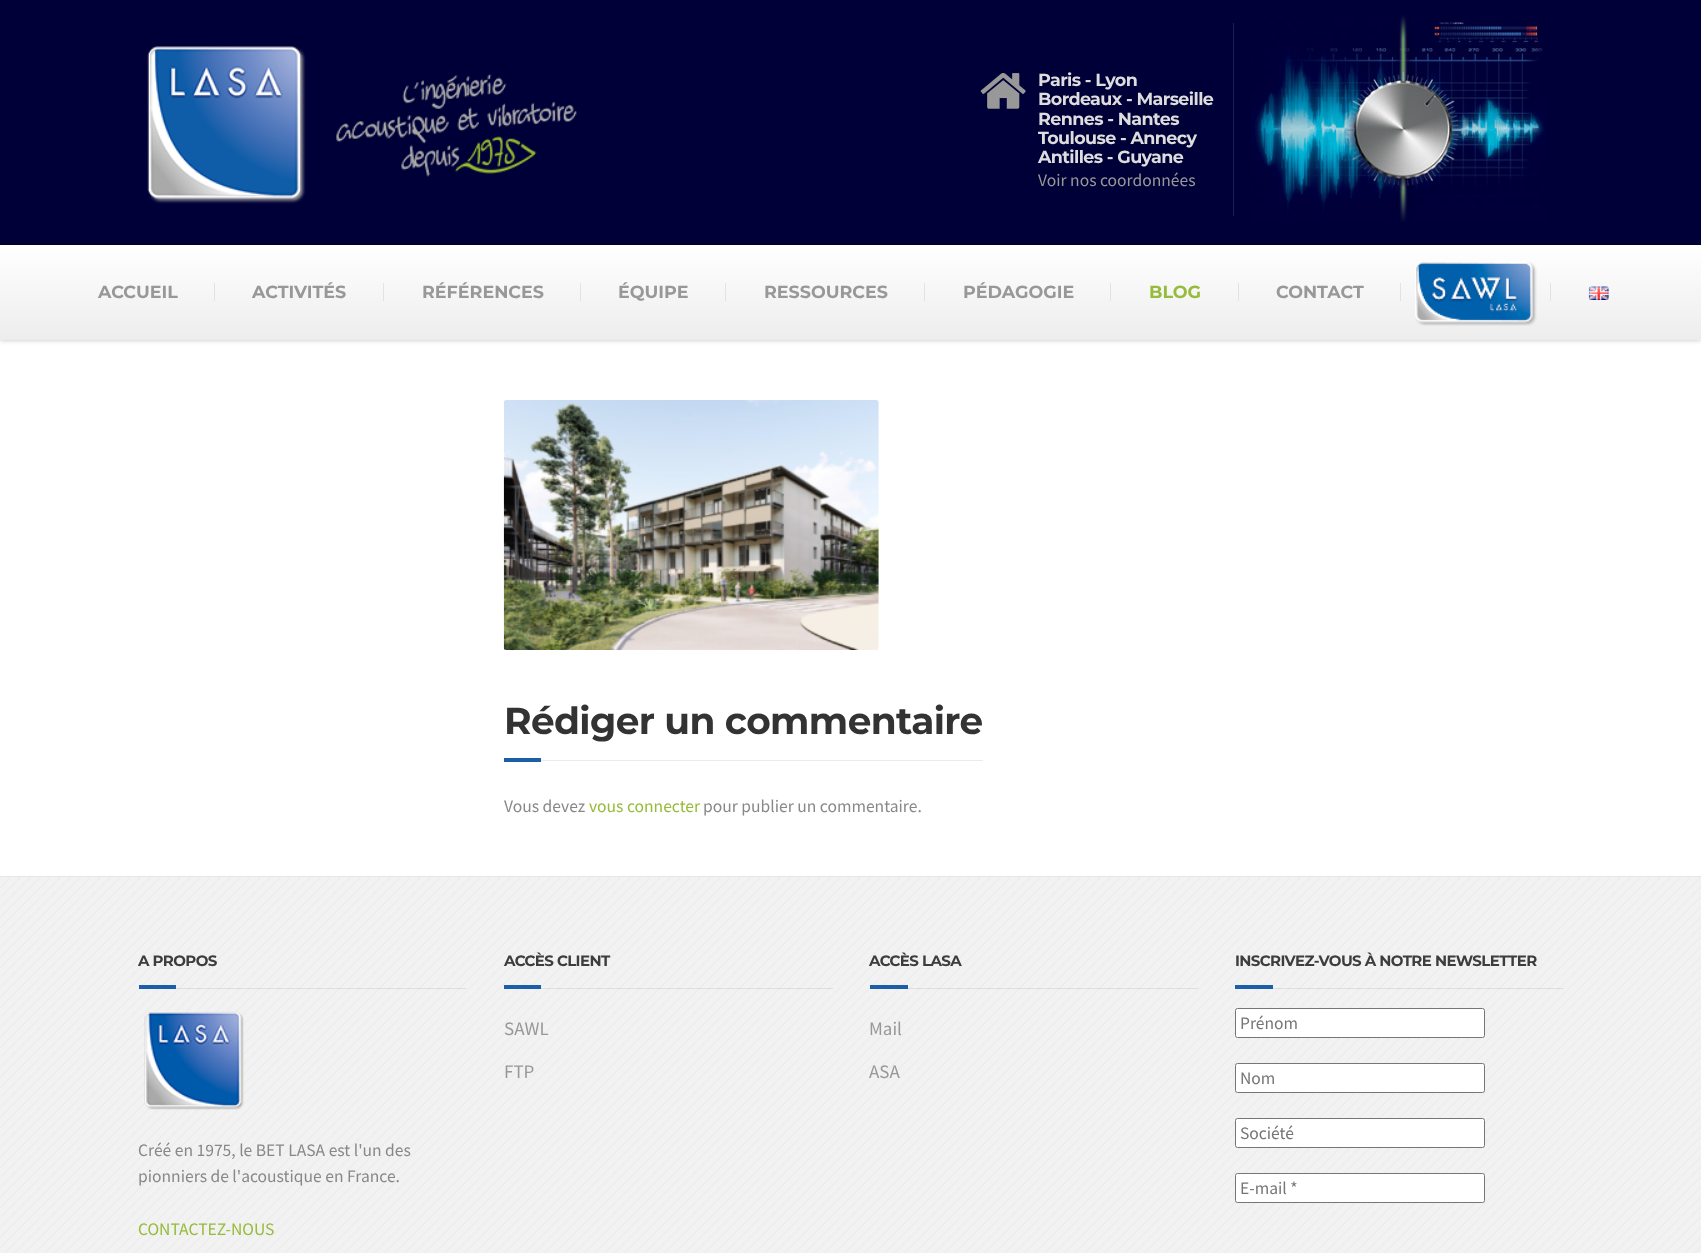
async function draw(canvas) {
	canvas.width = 1701;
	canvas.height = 1253;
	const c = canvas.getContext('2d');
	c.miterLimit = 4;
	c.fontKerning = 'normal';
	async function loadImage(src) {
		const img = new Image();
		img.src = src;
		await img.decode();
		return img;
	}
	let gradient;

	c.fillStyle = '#fff';
	c.fillRect(0, 0, 1701, 1253);
	c.fillStyle = '#000038';
	c.fillRect(0, 0, 1701, 245);
	c.drawImage(await loadImage('img1.png'), 147, 46, 430, 158);
	c.fillStyle = '#1e1e4f';
	c.fillRect(1233, 23, 1, 193);
	c.drawImage(await loadImage('img2.png'), 980, 73, 46, 36);
	c.letterSpacing = '-0.6px';
	c.font = 'bold 17.5px Montserrat';
	c.fillStyle = '#ddd';
	for (const [text, x, y] of [
		['Paris - Lyon', 1038, 86],
		['Bordeaux - Marseille', 1038, 105],
		['Rennes - Nantes', 1038, 125],
		['Toulouse - Annecy', 1038, 144],
		['Antilles - Guyane', 1038, 163],
	]) {
		c.fillText(text, x, y);
	}
	c.letterSpacing = '0px';
	c.font = '17.5px Source Sans Pro';
	c.fillStyle = '#989898';
	c.fillText('Voir nos coordonnées', 1038, 186);
	c.drawImage(await loadImage('img3.png'), 1251, 15, 296, 207);
	c.fillStyle = '#00000040';
	c.filter = 'blur(2.5px)';
	c.beginPath();
	c.rect(0, 245, 1701, 95);
	c.fill();
	c.filter = 'none';
	gradient = c.createLinearGradient(851, 245, 851, 340);
	gradient.addColorStop(0, '#fff');
	gradient.addColorStop(1, '#ededed');
	c.fillStyle = gradient;
	c.fillRect(0, 245, 1701, 95);
	gradient = c.createLinearGradient(851, 245, 851, 340);
	gradient.addColorStop(0, '#ebebeb');
	gradient.addColorStop(1, '#dadada');
	c.fillStyle = gradient;
	c.fillRect(1550, 283, 1, 18);
	c.fillRect(1400, 283, 1, 18);
	c.fillRect(1238, 283, 1, 18);
	c.fillRect(1110, 283, 1, 18);
	c.fillRect(924, 283, 1, 18);
	c.fillRect(725, 283, 1, 18);
	c.fillRect(580, 283, 1, 18);
	c.fillRect(383, 283, 1, 18);
	c.fillRect(214, 283, 1, 18);
	c.font = 'bold 17.5px Montserrat';
	c.fillStyle = '#989898';
	for (const [text, x, y] of [
		['ACCUEIL', 98, 298],
		['ACTIVITÉS', 252, 298],
		['RÉFÉRENCES', 422, 298],
		['ÉQUIPE', 618, 298],
		['RESSOURCES', 764, 298],
		['PÉDAGOGIE', 963, 298],
	]) {
		c.fillText(text, x, y);
	}
	c.fillStyle = '#97bb3a';
	c.fillText('BLOG', 1149, 298);
	c.fillStyle = '#989898';
	c.fillText('CONTACT', 1276, 298);
	c.drawImage(await loadImage('img4.png'), 1415, 261, 122, 65);
	c.drawImage(await loadImage('img5.png'), 1588, 286, 21, 14);
	c.drawImage(await loadImage('img6.png'), 503, 400, 376, 250);
	c.fillStyle = '#ebebeb';
	c.fillRect(541, 760, 442, 1);
	c.letterSpacing = '-0.6px';
	c.font = 'bold 37.5px Montserrat';
	c.fillStyle = '#333';
	c.fillText('Rédiger un commentaire', 504, 734);
	c.fillStyle = '#1c5fa6';
	c.fillRect(504, 758, 37, 4);
	c.letterSpacing = '0px';
	c.font = '17.5px Source Sans Pro';
	c.fillStyle = '#888';
	c.fillText('Vous devez', 504, 812);
	c.fillStyle = '#97bb3a';
	c.fillText('vous connecter', 589, 812);
	c.fillStyle = '#888';
	c.fillText('pour publier un commentaire.', 703, 812);
	c.fillStyle = '#f2f2f2';
	c.fillRect(0, 877, 1701, 376);
	c.drawImage(await loadImage('img7.png'), 0, 877, 1701, 376);
	c.fillStyle = '#e6e6e6';
	c.fillRect(0, 876, 1701, 1);
	c.fillStyle = '#00000014';
	c.fillRect(176, 988, 290, 1);
	c.letterSpacing = '-0.6px';
	c.font = 'bold 15px Montserrat';
	c.fillStyle = '#3d3d3d';
	c.fillText('A PROPOS', 138, 966);
	c.fillStyle = '#1c5fa6';
	c.fillRect(139, 985, 37, 4);
	c.drawImage(await loadImage('img8.png'), 144, 1011, 100, 99);
	c.letterSpacing = '0px';
	c.font = '17.5px Source Sans Pro';
	c.fillStyle = '#888';
	c.fillText('Créé en 1975, le BET LASA est l\'un des', 138, 1156);
	c.fillText('pionniers de l\'acoustique en France.', 138, 1182);
	c.fillStyle = '#97bb3a';
	c.fillText('CONTACTEZ-NOUS', 138, 1235);
	c.fillStyle = '#00000014';
	c.fillRect(541, 988, 292, 1);
	c.letterSpacing = '-0.6px';
	c.font = 'bold 15px Montserrat';
	c.fillStyle = '#3d3d3d';
	c.fillText('ACCÈS CLIENT', 504, 966);
	c.fillStyle = '#1c5fa6';
	c.fillRect(504, 985, 37, 4);
	c.letterSpacing = '0px';
	c.font = '19px Source Sans Pro';
	c.fillStyle = '#989898';
	c.fillText('SAWL', 504, 1035);
	c.fillText('FTP', 504, 1078);
	c.fillStyle = '#00000014';
	c.fillRect(908, 988, 290, 1);
	c.letterSpacing = '-0.6px';
	c.font = 'bold 15px Montserrat';
	c.fillStyle = '#3d3d3d';
	c.fillText('ACCÈS LASA', 869, 966);
	c.fillStyle = '#1c5fa6';
	c.fillRect(870, 985, 38, 4);
	c.letterSpacing = '0px';
	c.font = '19px Source Sans Pro';
	c.fillStyle = '#989898';
	c.fillText('Mail', 869, 1035);
	c.fillText('ASA', 869, 1078);
	c.fillStyle = '#00000014';
	c.fillRect(1273, 988, 291, 1);
	c.letterSpacing = '-0.6px';
	c.font = 'bold 15px Montserrat';
	c.fillStyle = '#3d3d3d';
	c.fillText('INSCRIVEZ-VOUS À NOTRE NEWSLETTER', 1235, 966);
	c.fillStyle = '#1c5fa6';
	c.fillRect(1235, 985, 38, 4);
	c.fillStyle = '#fff';
	c.beginPath();
	c.roundRect(1235.5, 1008.5, 249, 29, 2);
	c.fill();
	c.strokeStyle = '#767676';
	c.stroke();
	c.letterSpacing = '0px';
	c.font = '17.5px Source Sans Pro';
	c.fillStyle = '#757575';
	c.fillText('Prénom', 1240, 1029);
	c.fillStyle = '#fff';
	c.beginPath();
	c.roundRect(1235.5, 1063.5, 249, 29, 2);
	c.fill();
	c.stroke();
	c.fillStyle = '#757575';
	c.fillText('Nom', 1240, 1084);
	c.fillStyle = '#fff';
	c.beginPath();
	c.roundRect(1235.5, 1118.5, 249, 29, 2);
	c.fill();
	c.stroke();
	c.fillStyle = '#757575';
	c.fillText('Société', 1240, 1139);
	c.fillStyle = '#fff';
	c.beginPath();
	c.roundRect(1235.5, 1173.5, 249, 29, 2);
	c.fill();
	c.stroke();
	c.fillStyle = '#757575';
	c.fillText('E-mail *', 1240, 1194);
}

draw(document.querySelector('canvas'));
